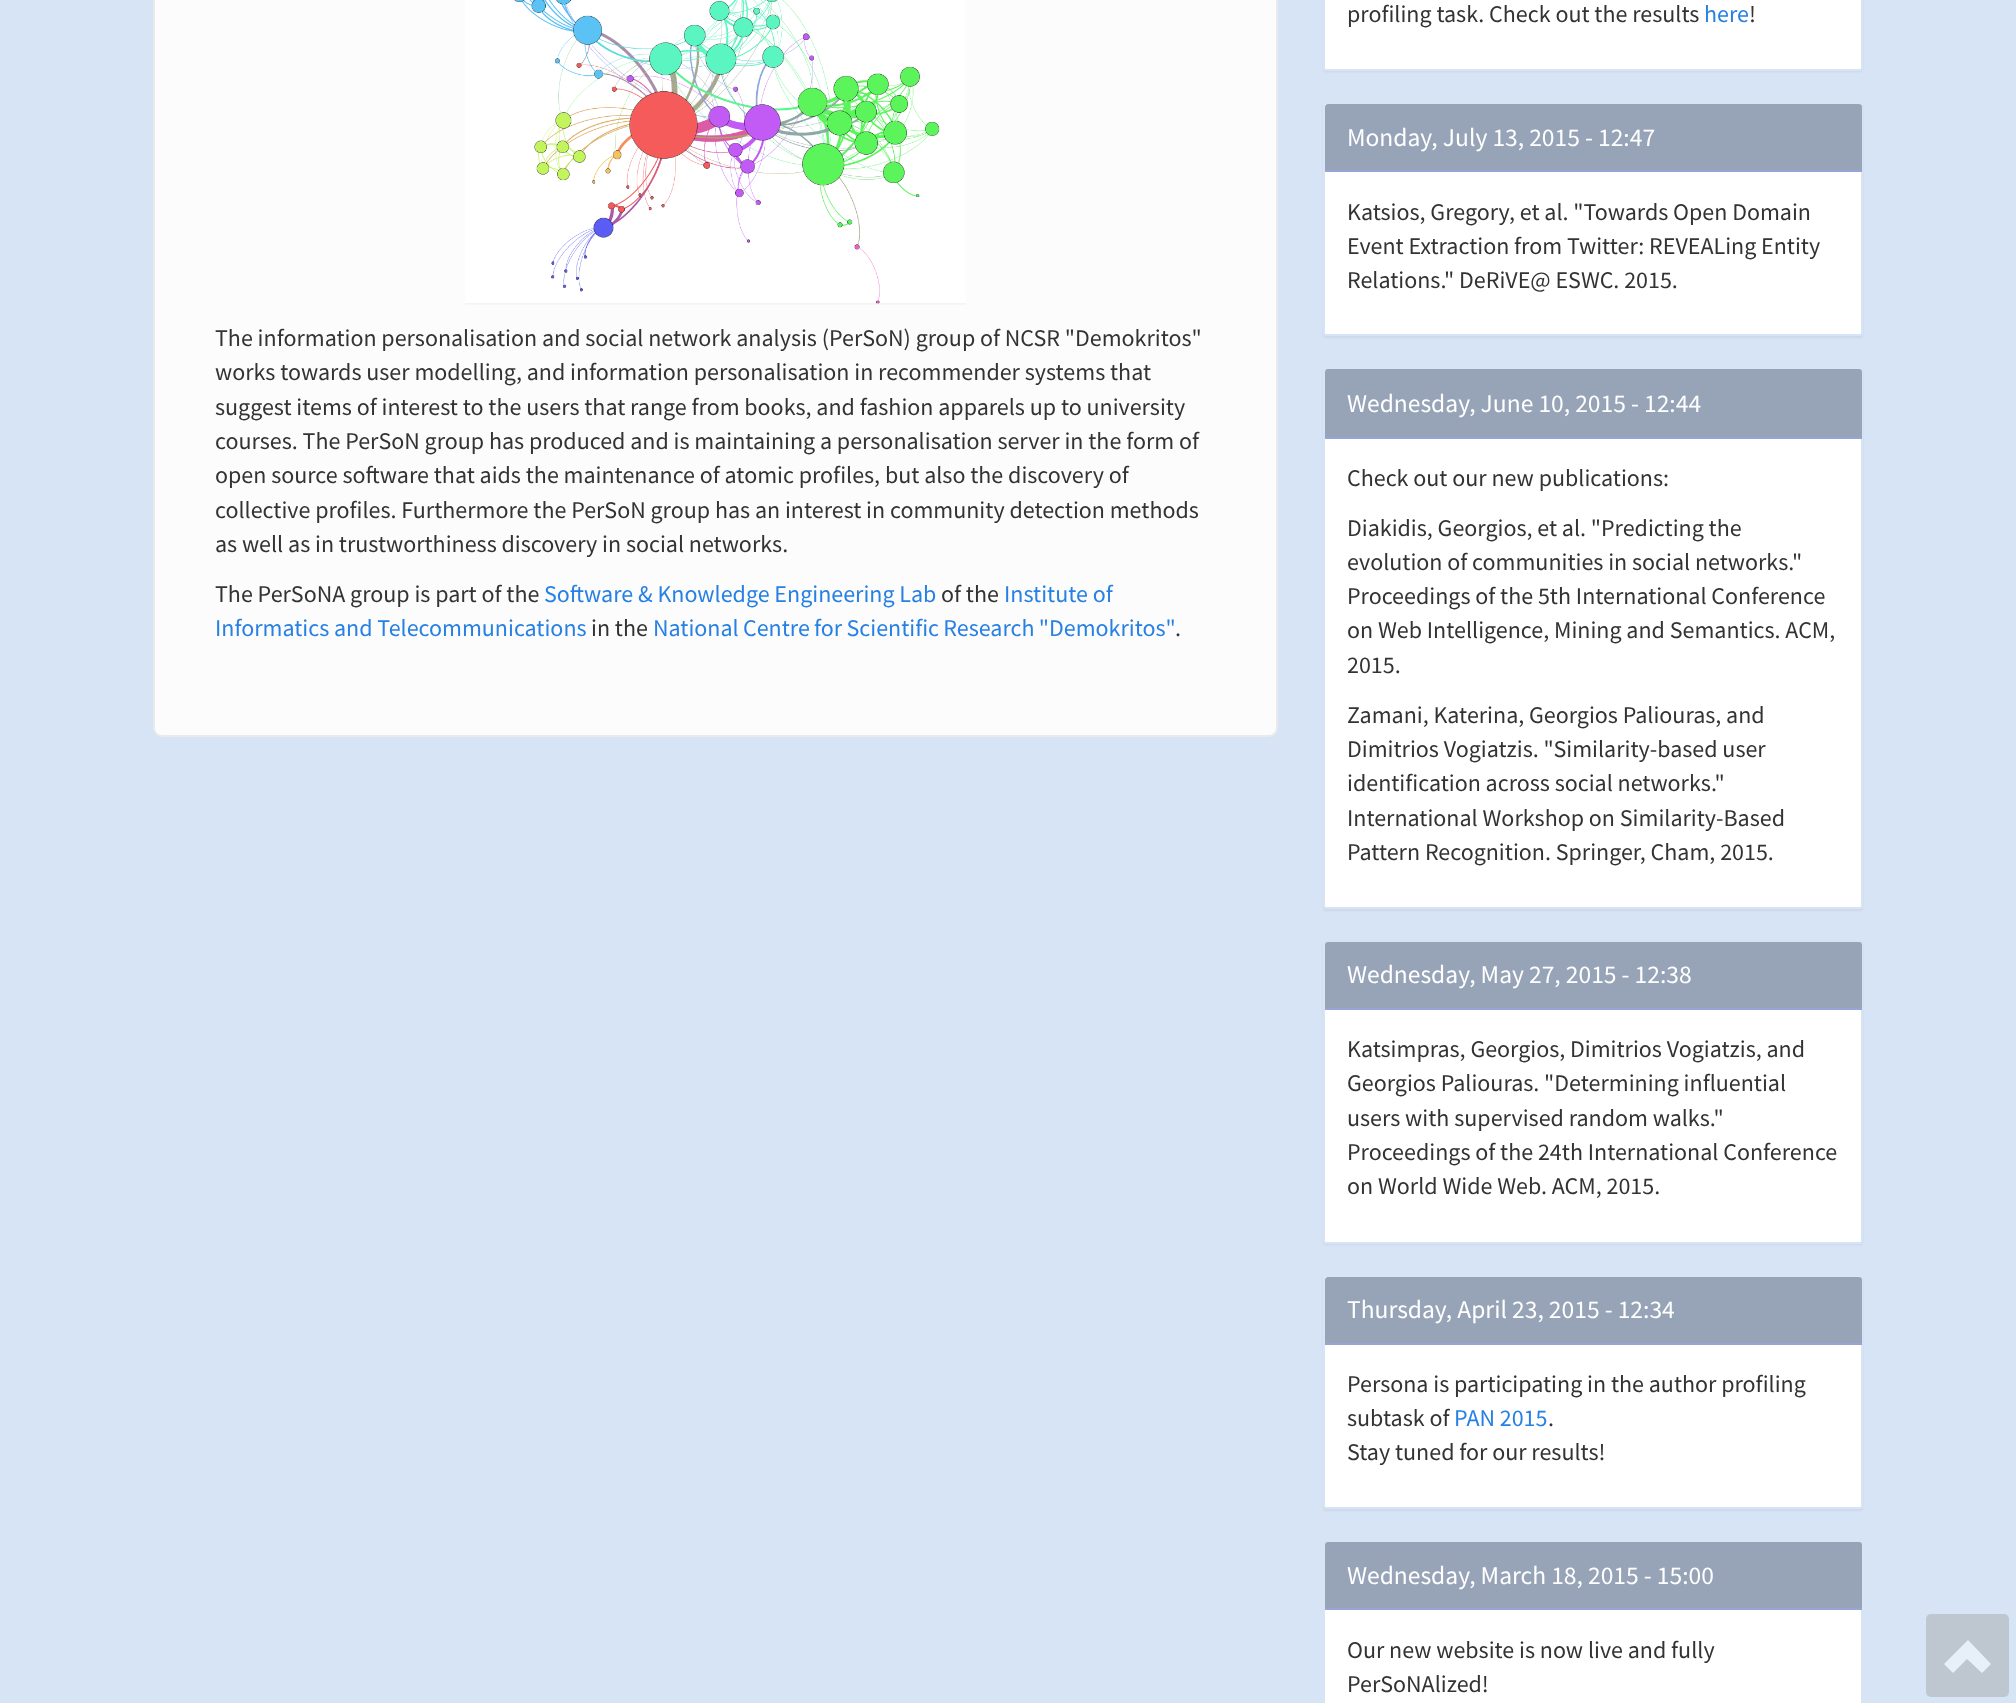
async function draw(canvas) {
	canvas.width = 2016;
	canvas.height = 1703;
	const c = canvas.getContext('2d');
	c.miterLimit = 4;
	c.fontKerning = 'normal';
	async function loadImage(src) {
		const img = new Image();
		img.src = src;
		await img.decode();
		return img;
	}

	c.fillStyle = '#d7e4f5';
	c.fillRect(0, 0, 2016, 1703);
	c.fillStyle = '#fcfcfc';
	c.beginPath();
	c.roundRect(154, -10, 1123, 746, 8);
	c.fill();
	c.strokeStyle = '#eaeaea';
	c.lineWidth = 2;
	c.stroke();
	c.drawImage(await loadImage('img1.png'), 465, 0, 501, 305);
	c.font = '24px Source Sans Pro';
	c.fillStyle = '#333';
	for (const [text, x, y] of [
		['The information personalisation and social network analysis (PerSoN) group of NCSR "Demokritos"', 215, 346],
		['works towards user modelling, and information personalisation in recommender systems that', 215, 380],
		['suggest items of interest to the users that range from books, and fashion apparels up to university', 215, 415],
		['courses. The PerSoN group has produced and is maintaining a personalisation server in the form of', 215, 449],
		['open source software that aids the maintenance of atomic profiles, but also the discovery of', 215, 483],
		['collective profiles. Furthermore the PerSoN group has an interest in community detection methods', 215, 518],
		['as well as in trustworthiness discovery in social networks.', 215, 552],
		['The PerSoNA group is part of the', 215, 602],
	]) {
		c.fillText(text, x, y);
	}
	c.fillStyle = '#2780e3';
	c.fillText('Software & Knowledge Engineering Lab', 544, 602);
	c.fillStyle = '#333';
	c.fillText('of the', 941, 602);
	c.fillStyle = '#2780e3';
	c.fillText('Institute of', 1004, 602);
	c.fillText('Informatics and Telecommunications', 215, 636);
	c.fillStyle = '#333';
	c.fillText('in the', 591, 636);
	c.wordSpacing = '-0.5px';
	c.fillStyle = '#2780e3';
	c.fillText('National Centre for Scientific Research "Demokritos"', 653, 636);
	c.wordSpacing = '0px';
	c.fillStyle = '#333';
	c.fillText('.', 1175, 636);
	c.fillStyle = '#0000000d';
	c.filter = 'blur(1px)';
	c.beginPath();
	c.roundRect(1323, -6, 540, 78, 3);
	c.fill();
	c.filter = 'none';
	c.fillStyle = '#fff';
	c.beginPath();
	c.roundRect(1324, -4, 538, 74, 2);
	c.fill();
	c.strokeStyle = '#d7e4f5';
	c.stroke();
	c.fillStyle = '#333';
	c.fillText('profiling task. Check out the results', 1347, 22);
	c.fillStyle = '#2780e3';
	c.fillText('here', 1704, 22);
	c.fillStyle = '#333';
	c.fillText('!', 1749, 22);
	c.fillStyle = '#0000000d';
	c.filter = 'blur(1px)';
	c.beginPath();
	c.roundRect(1323, 104, 540, 234, 3);
	c.fill();
	c.filter = 'none';
	c.fillStyle = '#fff';
	c.beginPath();
	c.roundRect(1324, 103, 538, 232, 2);
	c.fill();
	c.stroke();
	c.fillStyle = '#97a4b8';
	c.beginPath();
	c.roundRect(1325, 104, 537, 67, [3, 3, 0, 0]);
	c.fill();
	c.fillStyle = '#97a4d5';
	c.fillRect(1325, 170, 537, 2);
	c.font = '25.5px Source Sans Pro';
	c.fillStyle = '#fff';
	c.fillText('Monday, July 13, 2015 - 12:47', 1347, 146);
	c.font = '24px Source Sans Pro';
	c.fillStyle = '#333';
	for (const [text, x, y] of [
		['Katsios, Gregory, et al. "Towards Open Domain', 1347, 220],
		['Event Extraction from Twitter: REVEALing Entity', 1347, 254],
		['Relations." DeRiVE@ ESWC. 2015.', 1347, 288],
	]) {
		c.fillText(text, x, y);
	}
	c.fillStyle = '#0000000d';
	c.filter = 'blur(1px)';
	c.beginPath();
	c.roundRect(1323, 369, 540, 542, 3);
	c.fill();
	c.filter = 'none';
	c.fillStyle = '#fff';
	c.beginPath();
	c.roundRect(1324, 369, 538, 539, 2);
	c.fill();
	c.stroke();
	c.fillStyle = '#97a4b8';
	c.beginPath();
	c.roundRect(1325, 369, 537, 69, [3, 3, 0, 0]);
	c.fill();
	c.fillStyle = '#97a4d5';
	c.fillRect(1325, 437, 537, 2);
	c.font = '25.5px Source Sans Pro';
	c.fillStyle = '#fff';
	c.fillText('Wednesday, June 10, 2015 - 12:44', 1347, 412);
	c.font = '24px Source Sans Pro';
	c.fillStyle = '#333';
	for (const [text, x, y] of [
		['Check out our new publications:', 1347, 486],
		['Diakidis, Georgios, et al. "Predicting the', 1347, 536],
		['evolution of communities in social networks."', 1347, 570],
		['Proceedings of the 5th International Conference', 1347, 604],
		['on Web Intelligence, Mining and Semantics. ACM,', 1347, 638],
		['2015.', 1347, 673],
		['Zamani, Katerina, Georgios Paliouras, and', 1347, 723],
		['Dimitrios Vogiatzis. "Similarity-based user', 1347, 757],
		['identification across social networks."', 1347, 791],
		['International Workshop on Similarity-Based', 1347, 826],
		['Pattern Recognition. Springer, Cham, 2015.', 1347, 860],
	]) {
		c.fillText(text, x, y);
	}
	c.fillStyle = '#0000000d';
	c.filter = 'blur(1px)';
	c.beginPath();
	c.roundRect(1323, 942, 540, 303, 3);
	c.fill();
	c.filter = 'none';
	c.fillStyle = '#fff';
	c.beginPath();
	c.roundRect(1324, 942, 538, 301, 2);
	c.fill();
	c.stroke();
	c.fillStyle = '#97a4b8';
	c.beginPath();
	c.roundRect(1325, 942, 537, 68, [3, 3, 0, 0]);
	c.fill();
	c.fillStyle = '#97a4d5';
	c.fillRect(1325, 1008, 537, 2);
	c.font = '25.5px Source Sans Pro';
	c.fillStyle = '#fff';
	c.fillText('Wednesday, May 27, 2015 - 12:38', 1347, 983);
	c.font = '24px Source Sans Pro';
	c.fillStyle = '#333';
	for (const [text, x, y] of [
		['Katsimpras, Georgios, Dimitrios Vogiatzis, and', 1347, 1057],
		['Georgios Paliouras. "Determining influential', 1347, 1091],
		['users with supervised random walks."', 1347, 1126],
		['Proceedings of the 24th International Conference', 1347, 1160],
		['on World Wide Web. ACM, 2015.', 1347, 1194],
	]) {
		c.fillText(text, x, y);
	}
	c.fillStyle = '#0000000d';
	c.filter = 'blur(1px)';
	c.beginPath();
	c.roundRect(1323, 1277, 540, 234, 3);
	c.fill();
	c.filter = 'none';
	c.fillStyle = '#fff';
	c.beginPath();
	c.roundRect(1324, 1276, 538, 232, 2);
	c.fill();
	c.stroke();
	c.fillStyle = '#97a4b8';
	c.beginPath();
	c.roundRect(1325, 1277, 537, 67, [3, 3, 0, 0]);
	c.fill();
	c.fillStyle = '#97a4d5';
	c.fillRect(1325, 1343, 537, 2);
	c.font = '25.5px Source Sans Pro';
	c.fillStyle = '#fff';
	c.fillText('Thursday, April 23, 2015 - 12:34', 1347, 1318);
	c.font = '24px Source Sans Pro';
	c.fillStyle = '#333';
	c.fillText('Persona is participating in the author profiling', 1347, 1392);
	c.fillText('subtask of', 1347, 1426);
	c.fillStyle = '#2780e3';
	c.fillText('PAN 2015', 1454, 1426);
	c.fillStyle = '#333';
	c.fillText('.', 1548, 1426);
	c.fillText('Stay tuned for our results!', 1347, 1460);
	c.fillStyle = '#fff';
	c.beginPath();
	c.roundRect(1324, 1542, 538, 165, 2);
	c.fill();
	c.stroke();
	c.fillStyle = '#97a4b8';
	c.beginPath();
	c.roundRect(1325, 1542, 537, 68, [3, 3, 0, 0]);
	c.fill();
	c.fillStyle = '#97a4d5';
	c.fillRect(1325, 1608, 537, 2);
	c.font = '25.5px Source Sans Pro';
	c.fillStyle = '#fff';
	c.fillText('Wednesday, March 18, 2015 - 15:00', 1347, 1584);
	c.font = '24px Source Sans Pro';
	c.fillStyle = '#333';
	c.fillText('Our new website is now live and fully', 1347, 1658);
	c.fillText('PerSoNAlized!', 1347, 1692);
	c.fillStyle = '#bec6d0';
	c.beginPath();
	c.roundRect(1926, 1614, 83, 83, 5);
	c.fill();
	c.fillStyle = '#e7eff9';
	c.beginPath();
	c.moveTo(1944, 1664);
	c.lineTo(1953, 1673);
	c.lineTo(1967, 1659);
	c.lineTo(1982, 1673);
	c.lineTo(1991, 1664);
	c.lineTo(1968, 1640);
	c.closePath();
	c.fill();
}

draw(document.querySelector('canvas'));
